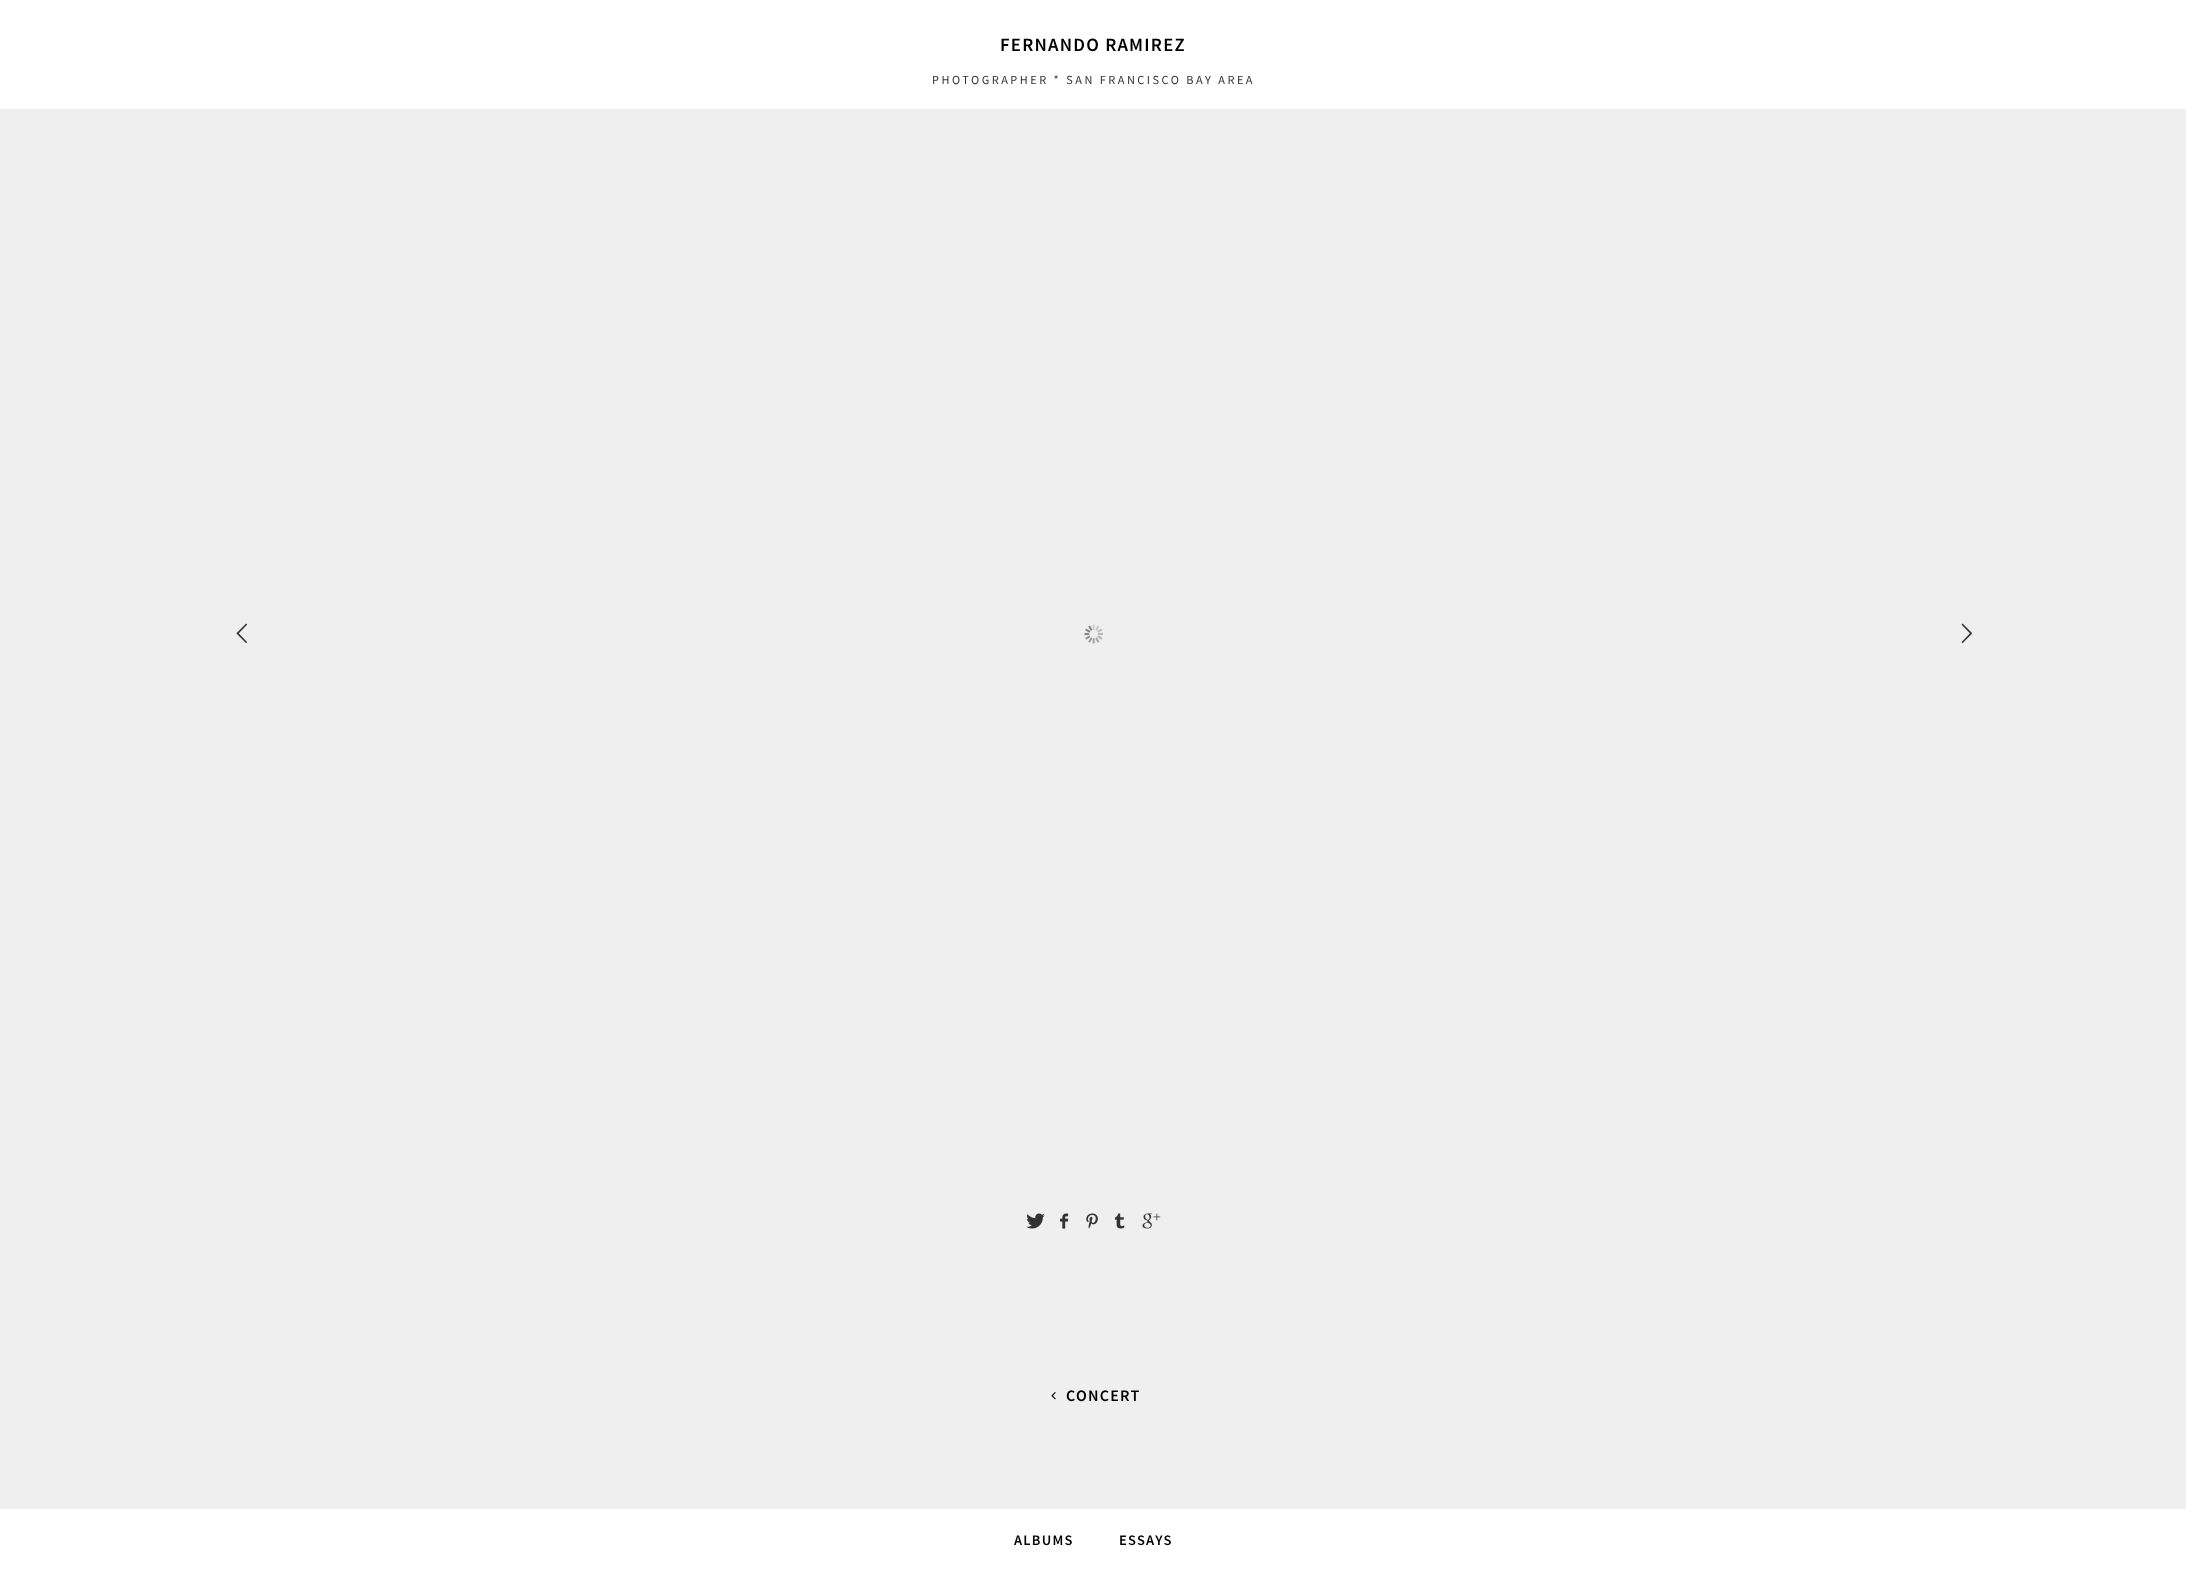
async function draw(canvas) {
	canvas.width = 2186;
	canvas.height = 1569;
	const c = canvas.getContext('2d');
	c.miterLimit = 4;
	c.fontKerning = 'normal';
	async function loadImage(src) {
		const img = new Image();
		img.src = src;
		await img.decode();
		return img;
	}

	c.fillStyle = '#efefef';
	c.fillRect(0, 0, 2186, 1569);
	c.fillStyle = '#fff';
	c.fillRect(0, 0, 2186, 109);
	c.letterSpacing = '1.25px';
	c.font = '600 18.75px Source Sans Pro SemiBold';
	c.fillStyle = '#000';
	c.fillText('FERNANDO RAMIREZ', 1000, 51);
	c.letterSpacing = '2.5px';
	c.font = '12.25px Source Sans Pro';
	c.fillStyle = '#333';
	c.fillText('PHOTOGRAPHER * SAN FRANCISCO BAY AREA', 932, 84);
	c.drawImage(await loadImage('img1.png'), 236, 623, 11, 20);
	c.drawImage(await loadImage('img2.png'), 1084, 624, 19, 20);
	c.drawImage(await loadImage('img3.png'), 1961, 623, 11, 20);
	c.drawImage(await loadImage('img4.png'), 1026, 1213, 19, 16);
	c.drawImage(await loadImage('img5.png'), 1060, 1213, 9, 16);
	c.drawImage(await loadImage('img6.png'), 1086, 1213, 12, 16);
	c.drawImage(await loadImage('img7.png'), 1115, 1213, 10, 16);
	c.drawImage(await loadImage('img8.png'), 1142, 1213, 19, 16);
	c.drawImage(await loadImage('img9.png'), 1051, 1392, 5, 8);
	c.letterSpacing = '1.25px';
	c.font = '600 16px Source Sans Pro SemiBold';
	c.fillStyle = '#000';
	c.fillText('CONCERT', 1066, 1401);
	c.fillStyle = '#fff';
	c.fillRect(0, 1509, 2186, 60);
	c.font = '600 14.5px Source Sans Pro SemiBold';
	c.fillStyle = '#000';
	c.fillText('ALBUMS', 1014, 1545);
	c.fillText('ESSAYS', 1119, 1545);
}

draw(document.querySelector('canvas'));
